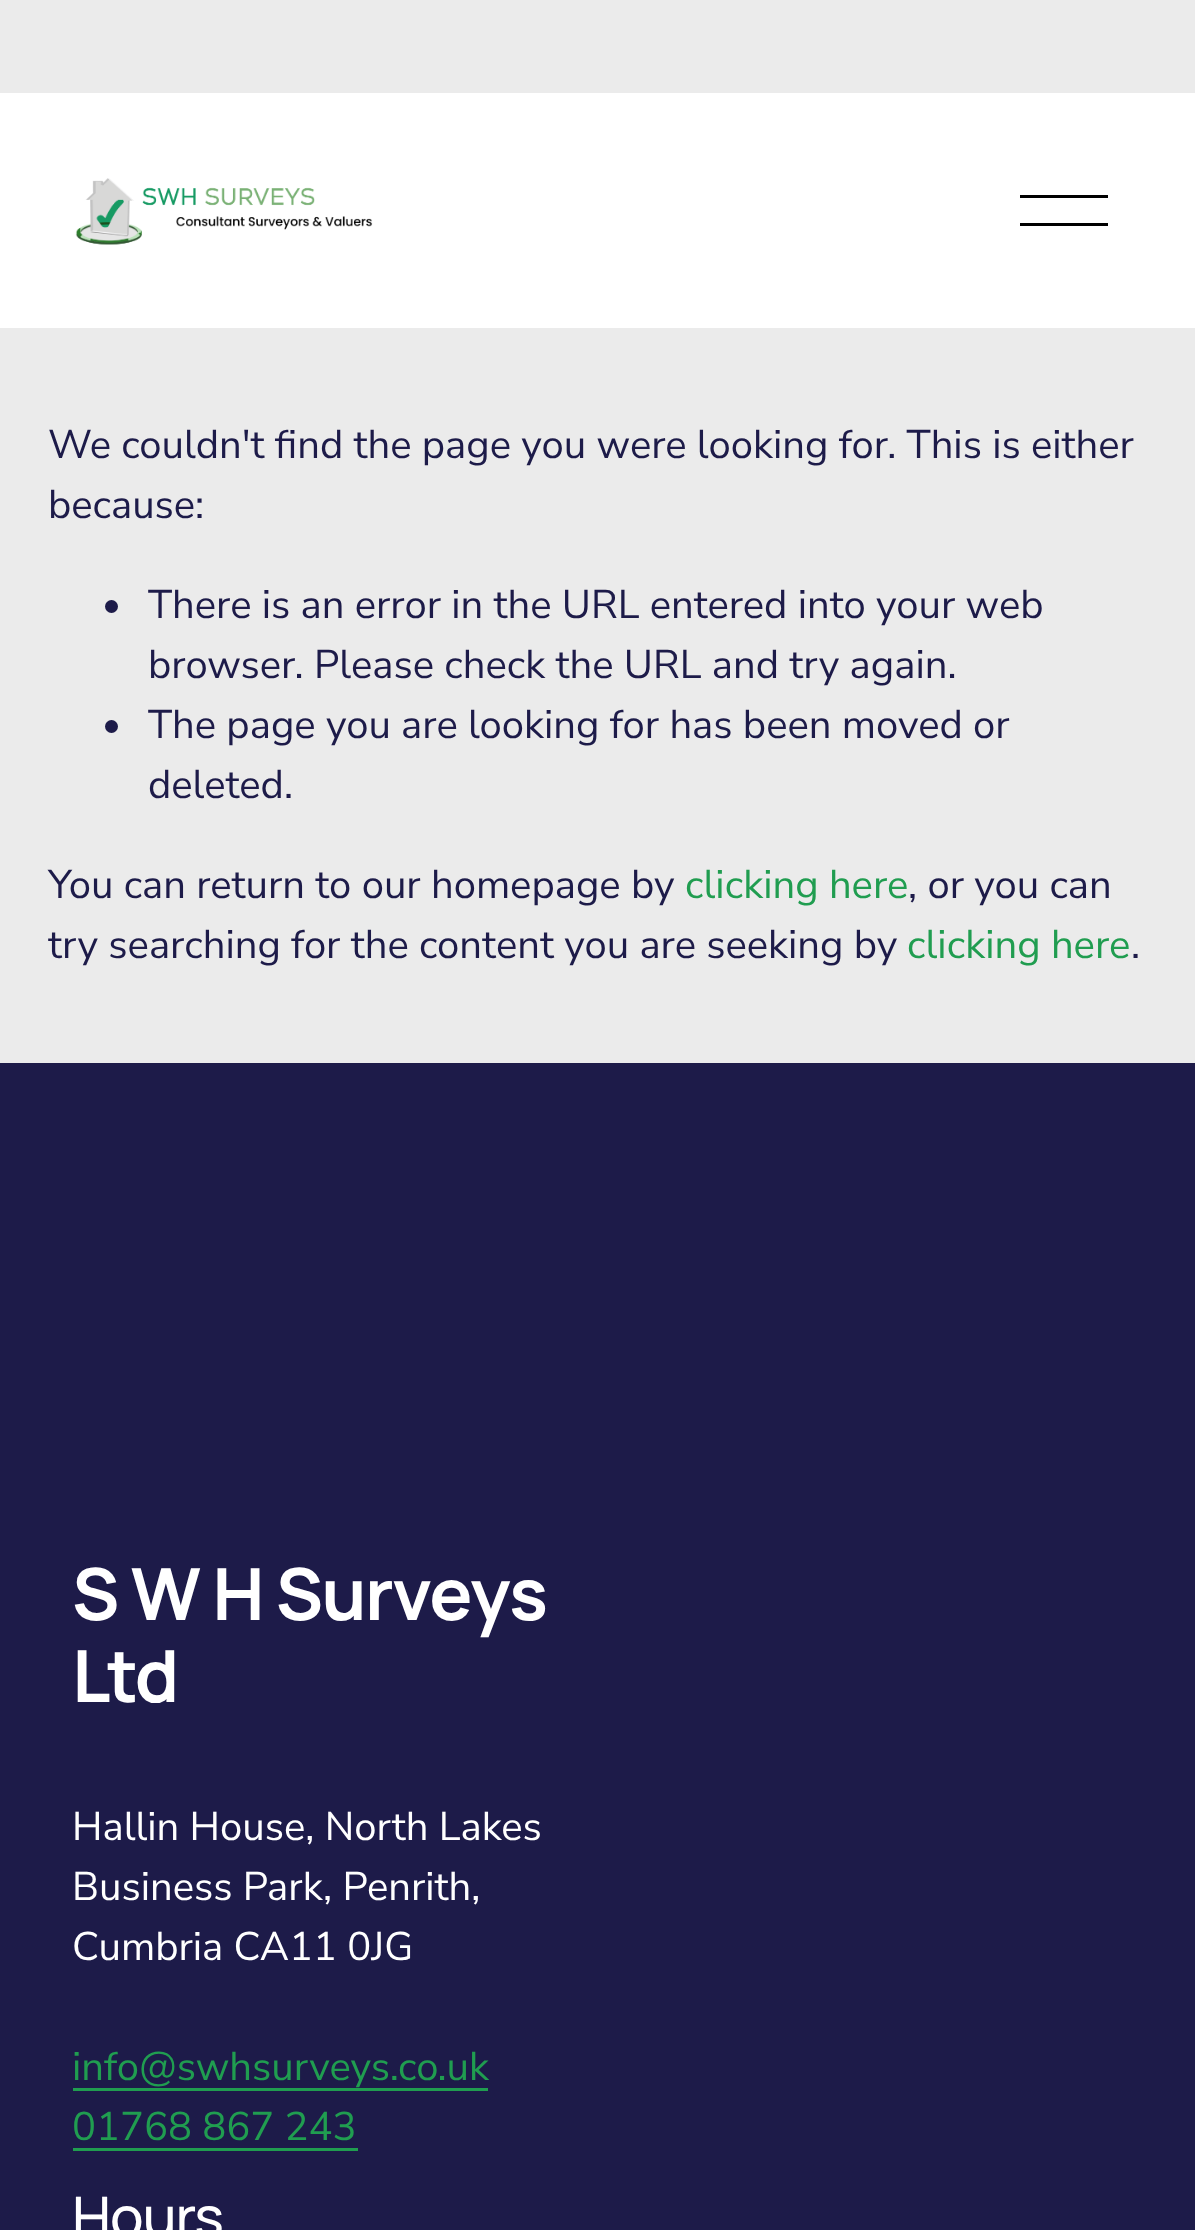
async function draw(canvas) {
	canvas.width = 1195;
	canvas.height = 2230;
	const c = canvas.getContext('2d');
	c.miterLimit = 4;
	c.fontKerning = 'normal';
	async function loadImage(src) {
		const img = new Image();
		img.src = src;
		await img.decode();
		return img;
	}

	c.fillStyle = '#ebebeb';
	c.fillRect(0, 0, 1195, 2230);
	c.fillStyle = '#fff';
	c.fillRect(0, 93, 1195, 235);
	c.drawImage(await loadImage('img1.png'), 75, 178, 298, 67);
	c.fillStyle = '#000';
	c.fillRect(1020, 195, 88, 3);
	c.fillRect(1020, 223, 88, 3);
	c.font = '40px Nunito Sans';
	c.fillStyle = '#1d1b49';
	c.fillText('We couldn\'t find the page you were looking for. This is either', 48, 458);
	c.fillText('because:', 48, 518);
	c.beginPath();
	c.arc(111.5, 606.5, 6.5, 0, 2 * Math.PI);
	c.fill();
	c.fillText('There is an error in the URL entered into your web', 148, 618);
	c.fillText('browser. Please check the URL and try again.', 148, 678);
	c.beginPath();
	c.arc(111.5, 726.5, 6.5, 0, 2 * Math.PI);
	c.fill();
	for (const [text, x, y] of [
		['The page you are looking for has been moved or', 148, 738],
		['deleted.', 148, 798],
		['You can return to our homepage by', 48, 898],
	]) {
		c.fillText(text, x, y);
	}
	c.fillStyle = '#209d50';
	c.fillText('clicking here', 685, 898);
	c.fillStyle = '#1d1b49';
	c.fillText(', or you can', 908, 898);
	c.fillText('try searching for the content you are seeking by', 48, 958);
	c.fillStyle = '#209d50';
	c.fillText('clicking here', 907, 958);
	c.fillStyle = '#1d1b49';
	c.fillText('.', 1131, 958);
	c.fillRect(0, 1063, 1195, 1167);
	c.letterSpacing = '-1.5px';
	c.font = 'bold 72px Manrope';
	c.fillStyle = '#fff';
	c.fillText('S W H Surveys', 72, 1620);
	c.fillText('Ltd', 72, 1702);
	c.letterSpacing = '0px';
	c.font = '40px Nunito Sans';
	for (const [text, x, y] of [
		['Hallin House, North Lakes', 72, 1840],
		['Business Park, Penrith,', 72, 1900],
		['Cumbria CA11 0JG', 72, 1960],
	]) {
		c.fillText(text, x, y);
	}
	c.fillStyle = '#209d50';
	c.fillText('info@swhsurveys.co.uk', 72, 2080);
	c.fillRect(73, 2088, 415, 3);
	c.fillText('01768 867 243', 72, 2140);
	c.fillRect(73, 2148, 285, 3);
	c.letterSpacing = '-1px';
	c.font = '500 56px Manrope';
	c.fillStyle = '#fff';
	c.fillText('Hours', 72, 2237);
}

draw(document.querySelector('canvas'));
